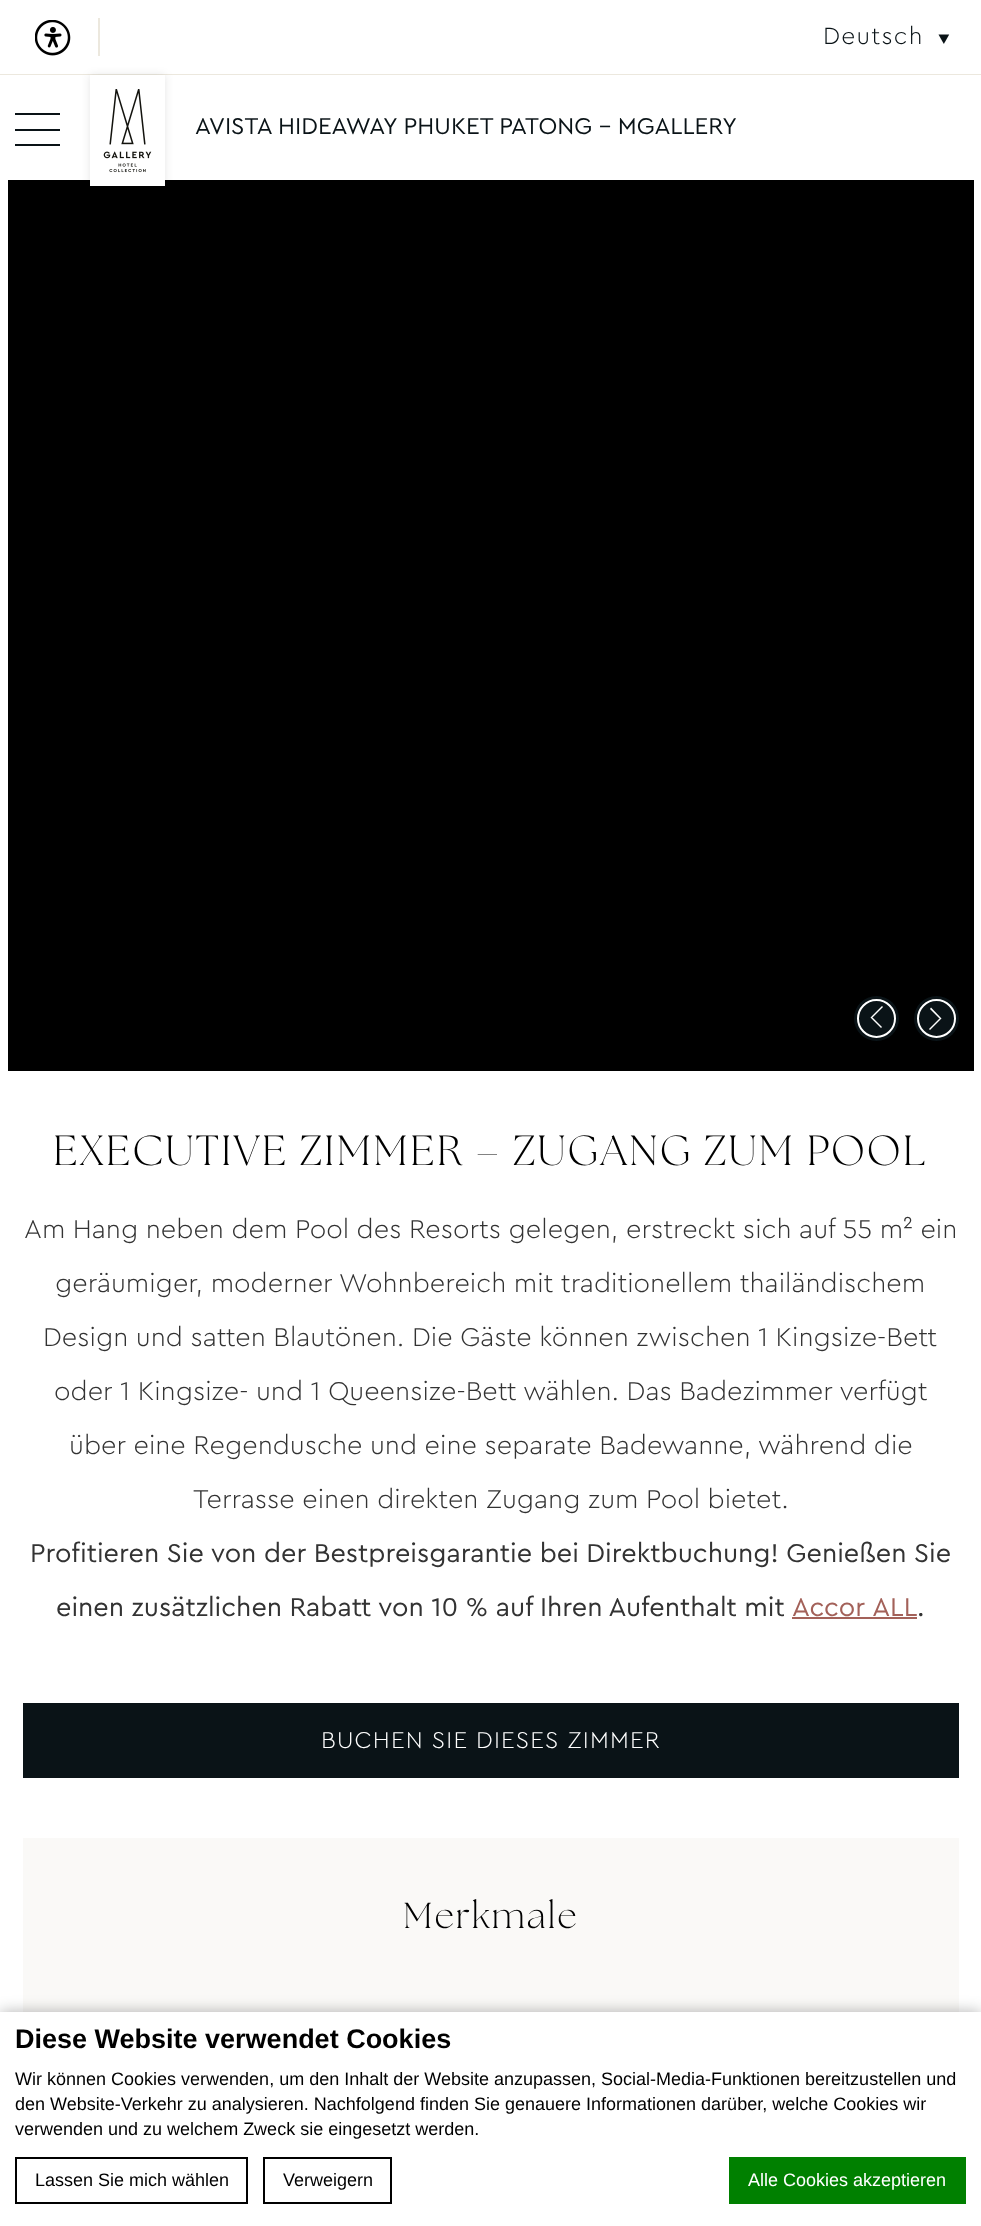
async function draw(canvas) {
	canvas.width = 981;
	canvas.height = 2226;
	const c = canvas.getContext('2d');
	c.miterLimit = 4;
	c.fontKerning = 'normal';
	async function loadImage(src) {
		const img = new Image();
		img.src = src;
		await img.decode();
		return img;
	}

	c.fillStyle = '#fff';
	c.fillRect(0, 0, 981, 2226);
	c.fillStyle = '#ece8de';
	c.fillRect(0, 74, 981, 1);
	c.drawImage(await loadImage('img1.png'), 35, 20, 36, 36);
	c.fillRect(98, 18, 2, 38);
	c.letterSpacing = '1.25px';
	c.font = '300 24.5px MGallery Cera';
	c.fillStyle = '#0a1317';
	c.fillText('Deutsch', 823, 44);
	c.font = '300 22px MGallery Cera';
	c.fillText('▾', 938, 44);
	for (const [x, y, w, h, color] of [
		[15, 113, 45, 2, '#0a1317'],
		[15, 144, 45, 2, '#0a1317'],
		[15, 129, 45, 2, '#0a1317'],
		[8, 180, 966, 891, '#000'],
	]) {
		c.fillStyle = color;
		c.fillRect(x, y, w, h);
	}
	c.fillStyle = '#0000001a';
	c.filter = 'blur(4px)';
	c.beginPath();
	c.rect(90, 75, 75, 111);
	c.fill();
	c.filter = 'none';
	c.fillStyle = '#fff';
	c.fillRect(90, 75, 75, 111);
	c.drawImage(await loadImage('img2.png'), 103, 89, 49, 84);
	c.letterSpacing = '0px';
	c.font = '24px MGallery Cera';
	c.fillStyle = '#0a1317';
	c.fillText('AVISTA HIDEAWAY PHUKET PATONG - MGALLERY', 195, 134);
	c.beginPath();
	c.arc(876.5, 1018.5, 22.5, 0, 2 * Math.PI);
	c.fill();
	c.fillStyle = '#fff';
	c.beginPath();
	c.moveTo(871.5, 1016.5);
	c.lineTo(882, 1027);
	c.lineTo(881, 1028);
	c.lineTo(870.5, 1017.5);
	c.closePath();
	c.fill();
	c.beginPath();
	c.moveTo(871.5, 1016.5);
	c.lineTo(882, 1006);
	c.lineTo(883, 1007);
	c.lineTo(872.5, 1017.5);
	c.closePath();
	c.fill();
	c.beginPath();
	c.arc(876.5, 1018.5, 18.5, 0, 2 * Math.PI);
	c.strokeStyle = '#fff';
	c.lineWidth = 2;
	c.stroke();
	c.fillStyle = '#0a1317';
	c.beginPath();
	c.arc(936.5, 1018.5, 22.5, 0, 2 * Math.PI);
	c.fill();
	c.fillStyle = '#fff';
	c.beginPath();
	c.moveTo(940.5, 1019.5);
	c.lineTo(930, 1009);
	c.lineTo(931, 1007.5);
	c.lineTo(941.5, 1018.5);
	c.closePath();
	c.fill();
	c.beginPath();
	c.moveTo(940.5, 1019.5);
	c.lineTo(930, 1030);
	c.lineTo(929, 1029);
	c.lineTo(939.5, 1018.5);
	c.closePath();
	c.fill();
	c.beginPath();
	c.arc(936.5, 1018.5, 18.5, 0, 2 * Math.PI);
	c.stroke();
	c.letterSpacing = '2.1px';
	c.font = '300 42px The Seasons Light';
	c.fillStyle = '#000';
	c.fillText('EXECUTIVE ZIMMER – ZUGANG ZUM POOL', 53, 1165);
	c.letterSpacing = '0px';
	c.font = '300 27px MGallery Cera';
	c.fillStyle = '#333';
	for (const [text, x, y] of [
		['Am Hang neben dem Pool des Resorts gelegen, erstreckt sich auf 55 m² ein', 24, 1238],
		['geräumiger, moderner Wohnbereich mit traditionellem thailändischem', 55, 1292],
		['Design und satten Blautönen. Die Gäste können zwischen 1 Kingsize-Bett', 43, 1346],
		['oder 1 Kingsize- und 1 Queensize-Bett wählen. Das Badezimmer verfügt', 54, 1400],
		['über eine Regendusche und eine separate Badewanne, während die', 69, 1454],
		['Terrasse einen direkten Zugang zum Pool bietet.', 193, 1508],
	]) {
		c.fillText(text, x, y);
	}
	c.font = '27px MGallery Cera';
	c.fillText('Profitieren Sie von der Bestpreisgarantie bei Direktbuchung! Genießen Sie', 30, 1562);
	c.wordSpacing = '-0.1px';
	c.fillText('einen zusätzlichen Rabatt von 10 % auf Ihren Aufenthalt mit', 56, 1616);
	c.wordSpacing = '1px';
	c.fillStyle = '#a36159';
	c.fillText('Accor ALL', 792, 1616);
	c.fillRect(792, 1617, 125, 2);
	c.wordSpacing = '0px';
	c.fillStyle = '#333';
	c.fillText('.', 917, 1616);
	c.fillStyle = '#0a1317';
	c.fillRect(23, 1703, 936, 75);
	c.letterSpacing = '1.2px';
	c.font = '300 24px MGallery Cera';
	c.fillStyle = '#fff';
	c.fillText('BUCHEN SIE DIESES ZIMMER', 321, 1748);
	c.fillStyle = '#faf9f7';
	c.fillRect(23, 1838, 936, 174);
	c.letterSpacing = '1.75px';
	c.font = '300 36px The Seasons Light';
	c.fillStyle = '#000';
	c.fillText('Merkmale', 403, 1928);
	c.fillStyle = '#0000004d';
	c.filter = 'blur(7.5px)';
	c.beginPath();
	c.rect(0, 2012, 981, 214);
	c.fill();
	c.filter = 'none';
	c.fillStyle = '#fff';
	c.fillRect(0, 2012, 981, 214);
	c.letterSpacing = '0px';
	c.font = 'bold 27px Liberation Sans';
	c.fillStyle = '#000';
	c.fillText('Diese Website verwendet Cookies', 15, 2048);
	c.font = '18px Liberation Sans';
	for (const [text, x, y] of [
		['Wir können Cookies verwenden, um den Inhalt der Website anzupassen, Social-Media-Funktionen bereitzustellen und', 15, 2085],
		['den Website-Verkehr zu analysieren. Nachfolgend finden Sie genauere Informationen darüber, welche Cookies wir', 15, 2110],
		['verwenden und zu welchem Zweck sie eingesetzt werden.', 15, 2135],
	]) {
		c.fillText(text, x, y);
	}
	c.strokeStyle = '#000';
	c.strokeRect(16, 2158, 231, 45);
	c.fillText('Lassen Sie mich wählen', 35, 2186);
	c.strokeRect(264, 2158, 127, 45);
	c.fillText('Verweigern', 283, 2186);
	c.fillStyle = '#008000';
	c.fillRect(729, 2157, 237, 47);
	c.fillStyle = '#fff';
	c.fillText('Alle Cookies akzeptieren', 748, 2186);
}

draw(document.querySelector('canvas'));
